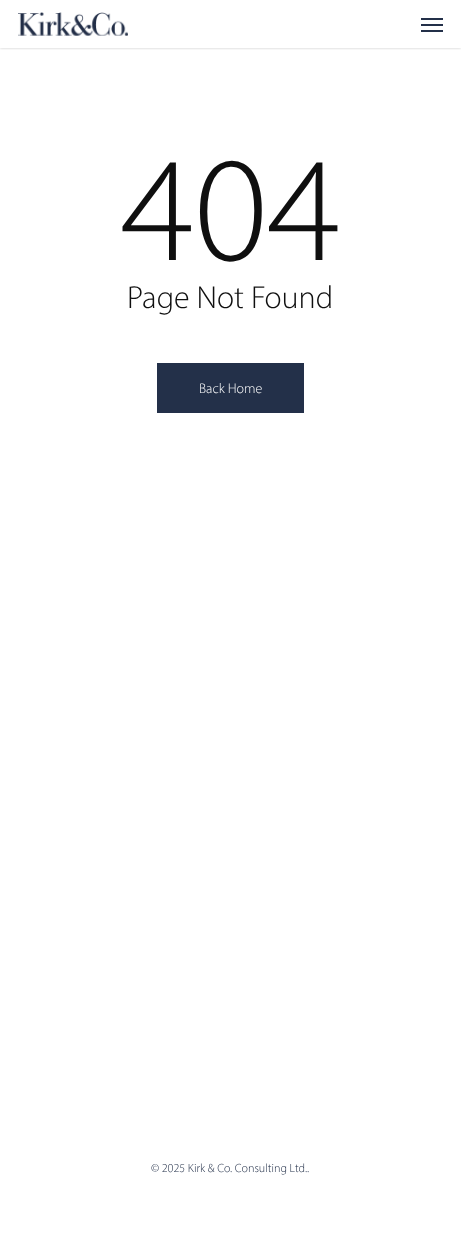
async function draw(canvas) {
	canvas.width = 461;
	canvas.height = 1245;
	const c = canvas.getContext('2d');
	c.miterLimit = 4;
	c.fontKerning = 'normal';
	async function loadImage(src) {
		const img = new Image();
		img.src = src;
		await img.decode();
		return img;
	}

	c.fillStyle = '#fff';
	c.fillRect(0, 0, 461, 1245);
	c.save();
	c.beginPath();
	c.rect(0, 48, 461, 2);
	c.clip();
	c.fillStyle = '#00000038';
	c.filter = 'blur(1.5px)';
	c.beginPath();
	c.rect(0, 0, 461, 48);
	c.fill();
	c.filter = 'none';
	c.restore();
	c.drawImage(await loadImage('img1.png'), 18, 12, 110, 24);
	for (const [x, y, w, h, color] of [
		[421, 18, 22, 2, '#233049'],
		[421, 30, 22, 2, '#233049'],
		[421, 24, 22, 2, '#233049'],
	]) {
		c.fillStyle = color;
		c.fillRect(x, y, w, h);
	}
	c.font = '300 150px Myriad';
	c.fillStyle = '#0f0f0f';
	c.fillText('404', 121, 260);
	c.font = '300 32px Myriad';
	c.fillText('Page Not Found', 127, 308);
	c.fillStyle = '#233049';
	c.fillRect(157, 363, 147, 50);
	c.font = '300 14px Myriad';
	c.fillStyle = '#fff';
	c.fillText('Back Home', 199, 393);
	c.font = '300 12px Myriad';
	c.fillStyle = '#233049';
	c.fillText('© 2025 Kirk & Co. Consulting Ltd..', 151, 1172);
}

draw(document.querySelector('canvas'));
